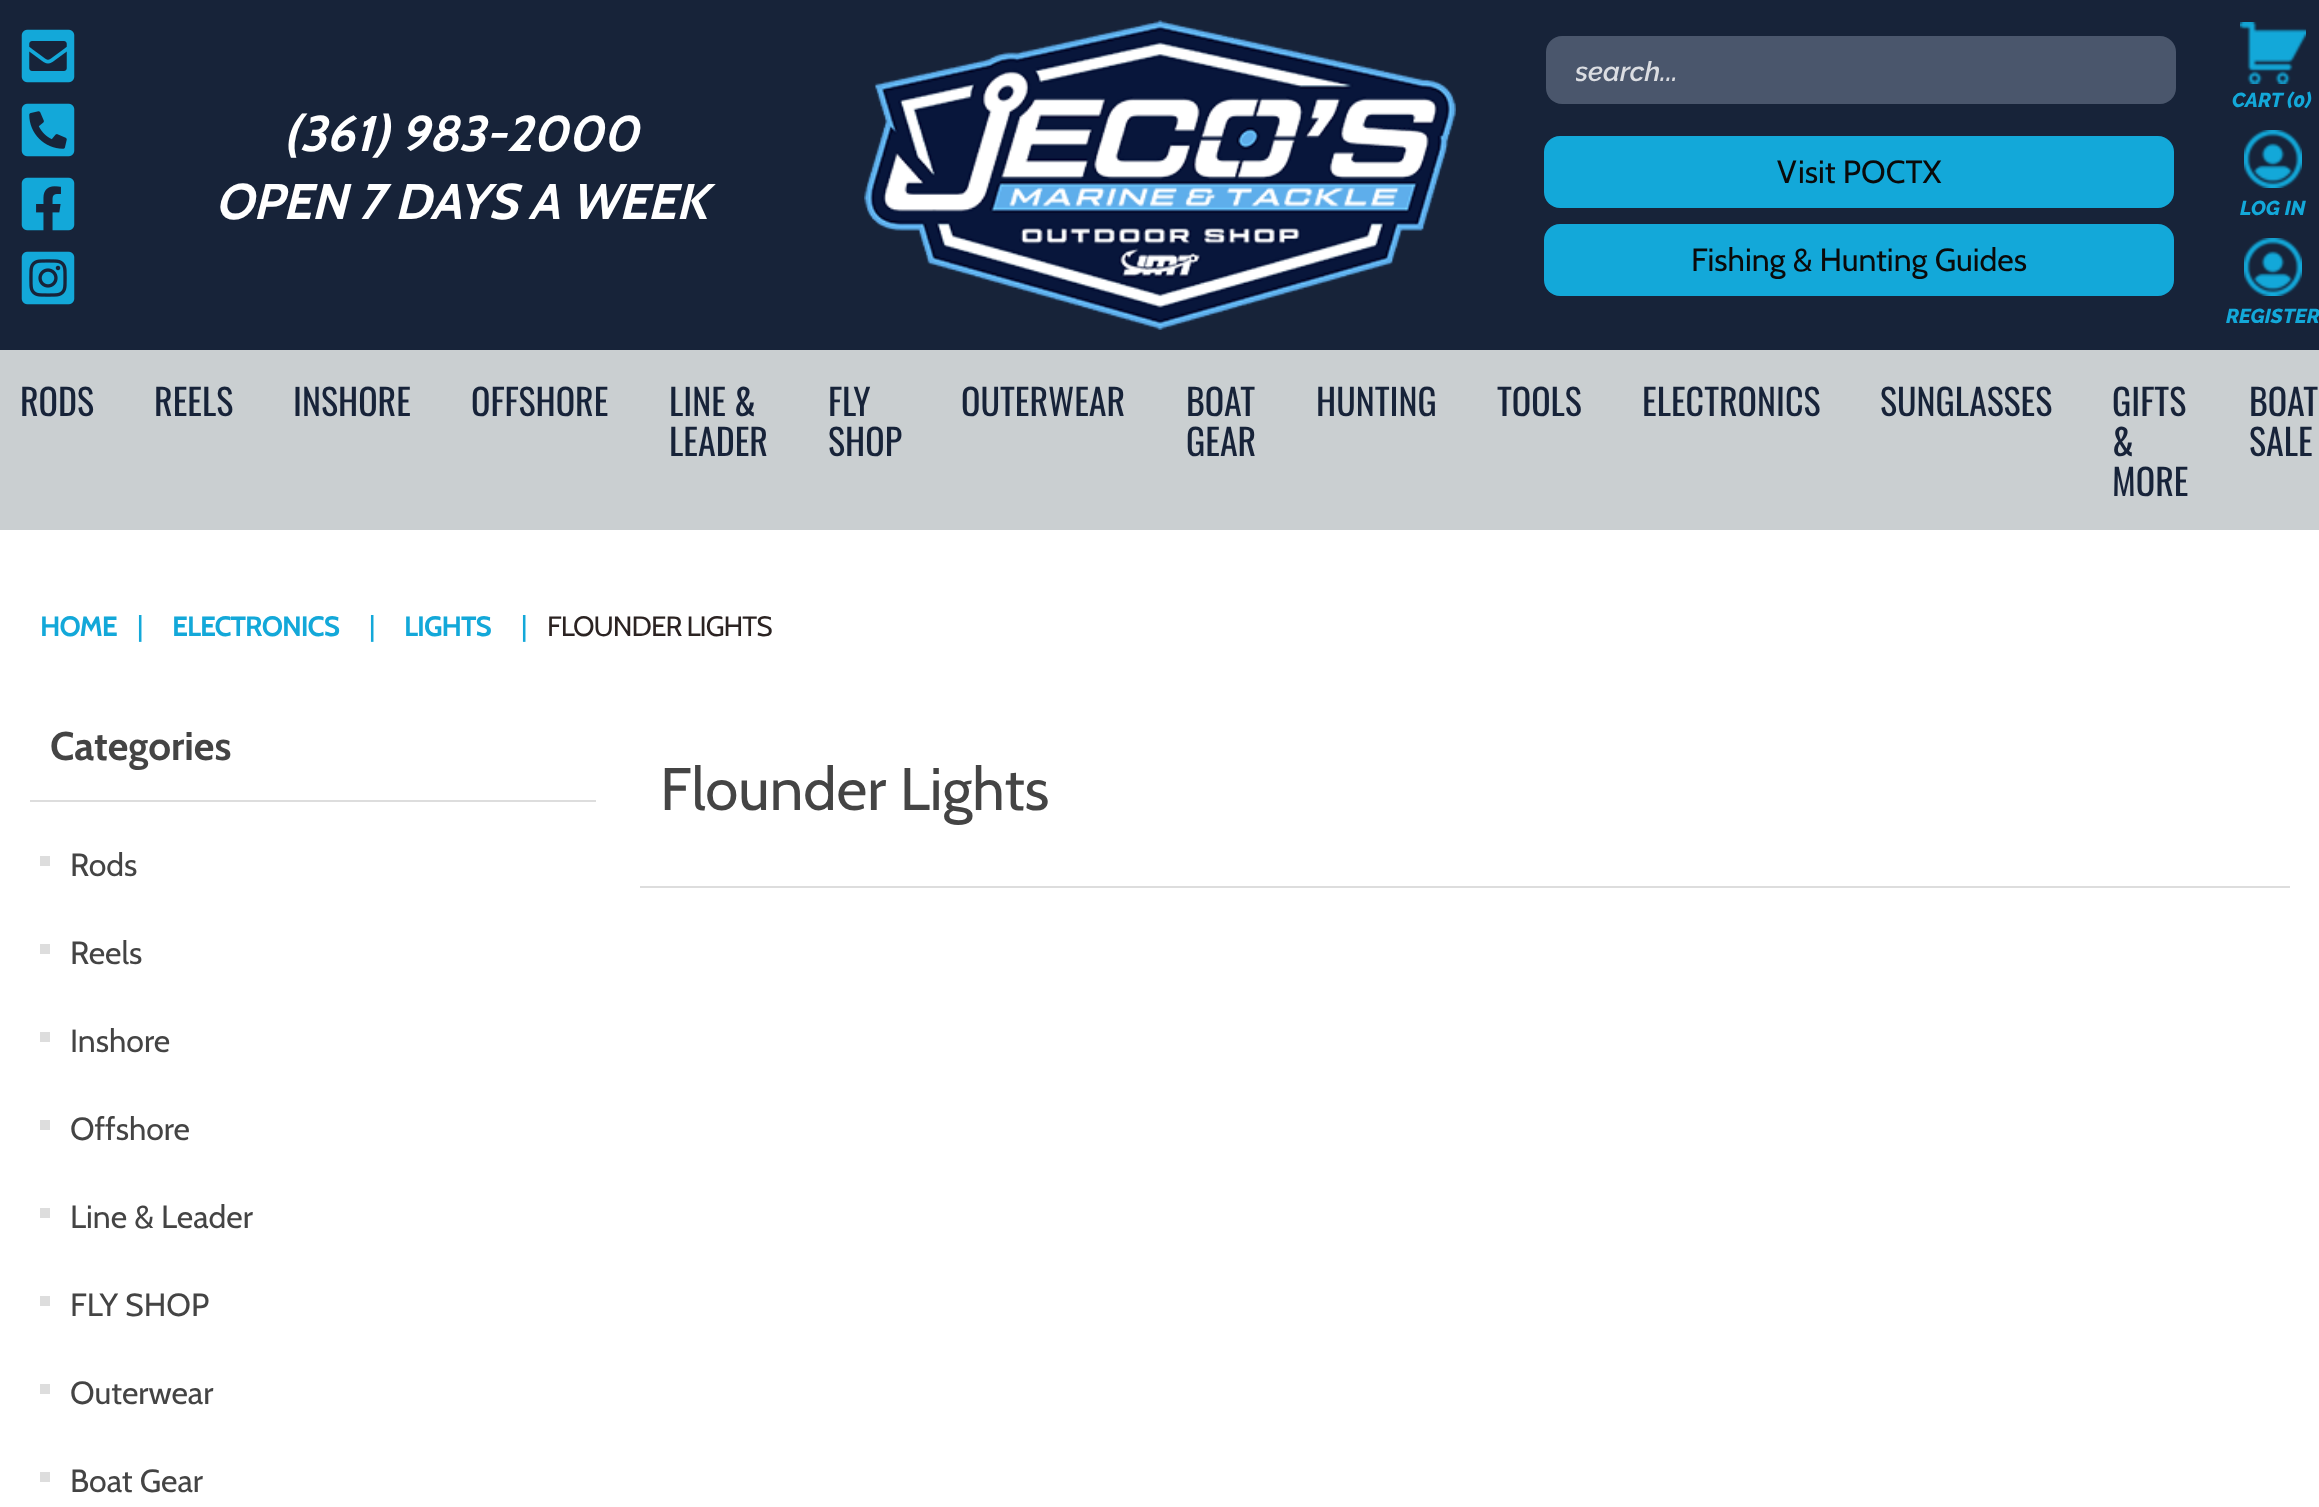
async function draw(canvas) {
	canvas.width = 2319;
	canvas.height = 1507;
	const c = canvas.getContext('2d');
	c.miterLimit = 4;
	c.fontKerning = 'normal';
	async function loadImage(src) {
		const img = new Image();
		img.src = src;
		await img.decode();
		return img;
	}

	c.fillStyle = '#fff';
	c.fillRect(0, 0, 2319, 1507);
	c.fillStyle = '#172339';
	c.fillRect(0, 0, 2319, 350);
	c.drawImage(await loadImage('img1.png'), 21, 29, 54, 54);
	c.drawImage(await loadImage('img2.png'), 21, 103, 54, 54);
	c.drawImage(await loadImage('img3.png'), 21, 177, 54, 54);
	c.drawImage(await loadImage('img4.png'), 21, 251, 54, 54);
	c.font = 'italic bold 50px Cabin';
	c.fillStyle = '#fff';
	c.fillText('(361) 983-2000', 283, 151);
	c.fillText('OPEN 7 DAYS A WEEK', 215, 219);
	c.drawImage(await loadImage('img5.png'), 864, 20, 592, 310);
	c.fillStyle = '#4a566c';
	c.beginPath();
	c.roundRect(1546, 36, 630, 68, 16);
	c.fill();
	c.save();
	c.beginPath();
	c.rect(1576, 54, 570, 32);
	c.clip();
	c.font = 'italic 600 27.5px Raleway';
	c.fillStyle = '#dbdde2';
	c.fillText('search...', 1575, 81);
	c.restore();
	c.fillStyle = '#13a8d9';
	c.beginPath();
	c.roundRect(1544, 136, 630, 72, 16);
	c.fill();
	c.font = '32px Cabin';
	c.fillStyle = '#0a0a0a';
	c.fillText('Visit POCTX', 1777, 183);
	c.fillStyle = '#13a8d9';
	c.beginPath();
	c.roundRect(1544, 224, 630, 72, 16);
	c.fill();
	c.fillStyle = '#0a0a0a';
	c.fillText('Fishing & Hunting Guides', 1691, 271);
	c.drawImage(await loadImage('img6.png'), 2240, 22, 66, 62);
	c.font = 'italic 800 20.25px Raleway';
	c.fillStyle = '#13a8d9';
	c.fillText('CART (0)', 2232, 107);
	c.drawImage(await loadImage('img7.png'), 2244, 130, 58, 58);
	c.fillText('LOG IN', 2240, 215);
	c.drawImage(await loadImage('img7.png'), 2244, 238, 58, 58);
	c.fillText('REGISTER', 2226, 323);
	c.fillStyle = '#cacfd1';
	c.fillRect(0, 350, 2319, 180);
	c.font = '36px Oswald';
	c.fillStyle = '#172339';
	for (const [text, x, y] of [
		['RODS', 20, 416],
		['REELS', 154, 416],
		['INSHORE', 293, 416],
		['OFFSHORE', 471, 416],
		['LINE &', 669, 416],
		['LEADER', 669, 456],
		['FLY', 828, 416],
		['SHOP', 828, 456],
		['OUTERWEAR', 961, 416],
		['BOAT', 1186, 416],
		['GEAR', 1186, 456],
		['HUNTING', 1316, 416],
		['TOOLS', 1497, 416],
		['ELECTRONICS', 1642, 416],
		['SUNGLASSES', 1880, 416],
		['GIFTS', 2112, 416],
		['&', 2112, 456],
		['MORE', 2112, 496],
		['BOAT', 2249, 416],
		['SALE', 2249, 456],
	]) {
		c.fillText(text, x, y);
	}
	c.letterSpacing = '-1px';
	c.font = 'bold 28px Cabin';
	c.fillStyle = '#13a8d9';
	c.fillText('HOME', 40, 636);
	c.font = '28px Cabin';
	c.fillText('|', 137, 636);
	c.font = 'bold 28px Cabin';
	c.fillText('ELECTRONICS', 172, 636);
	c.font = '28px Cabin';
	c.fillText('|', 369, 636);
	c.font = 'bold 28px Cabin';
	c.fillText('LIGHTS', 404, 636);
	c.font = '28px Cabin';
	c.fillText('|', 521, 636);
	c.fillStyle = '#2b2322';
	c.fillText('FLOUNDER LIGHTS', 547, 636);
	c.fillStyle = '#ddd';
	c.fillRect(30, 800, 566, 2);
	c.letterSpacing = '0px';
	c.font = 'bold 40px Cabin';
	c.fillStyle = '#444';
	c.fillText('Categories', 50, 760);
	c.fillStyle = '#ddd';
	c.fillRect(40, 856, 10, 10);
	c.font = '32px Cabin';
	c.fillStyle = '#444';
	c.fillText('Rods', 70, 876);
	c.fillStyle = '#ddd';
	c.fillRect(40, 944, 10, 10);
	c.fillStyle = '#444';
	c.fillText('Reels', 70, 964);
	c.fillStyle = '#ddd';
	c.fillRect(40, 1032, 10, 10);
	c.fillStyle = '#444';
	c.fillText('Inshore', 70, 1052);
	c.fillStyle = '#ddd';
	c.fillRect(40, 1120, 10, 10);
	c.fillStyle = '#444';
	c.fillText('Offshore', 70, 1140);
	c.fillStyle = '#ddd';
	c.fillRect(40, 1208, 10, 10);
	c.fillStyle = '#444';
	c.fillText('Line & Leader', 70, 1228);
	c.fillStyle = '#ddd';
	c.fillRect(40, 1296, 10, 10);
	c.fillStyle = '#444';
	c.fillText('FLY SHOP', 70, 1316);
	c.fillStyle = '#ddd';
	c.fillRect(40, 1384, 10, 10);
	c.fillStyle = '#444';
	c.fillText('Outerwear', 70, 1404);
	c.fillStyle = '#ddd';
	c.fillRect(40, 1472, 10, 10);
	c.fillStyle = '#444';
	c.fillText('Boat Gear', 70, 1492);
	c.fillStyle = '#ddd';
	c.fillRect(640, 886, 1650, 2);
	c.font = '60px Cabin';
	c.fillStyle = '#444';
	c.fillText('Flounder Lights', 660, 810);
}

draw(document.querySelector('canvas'));
